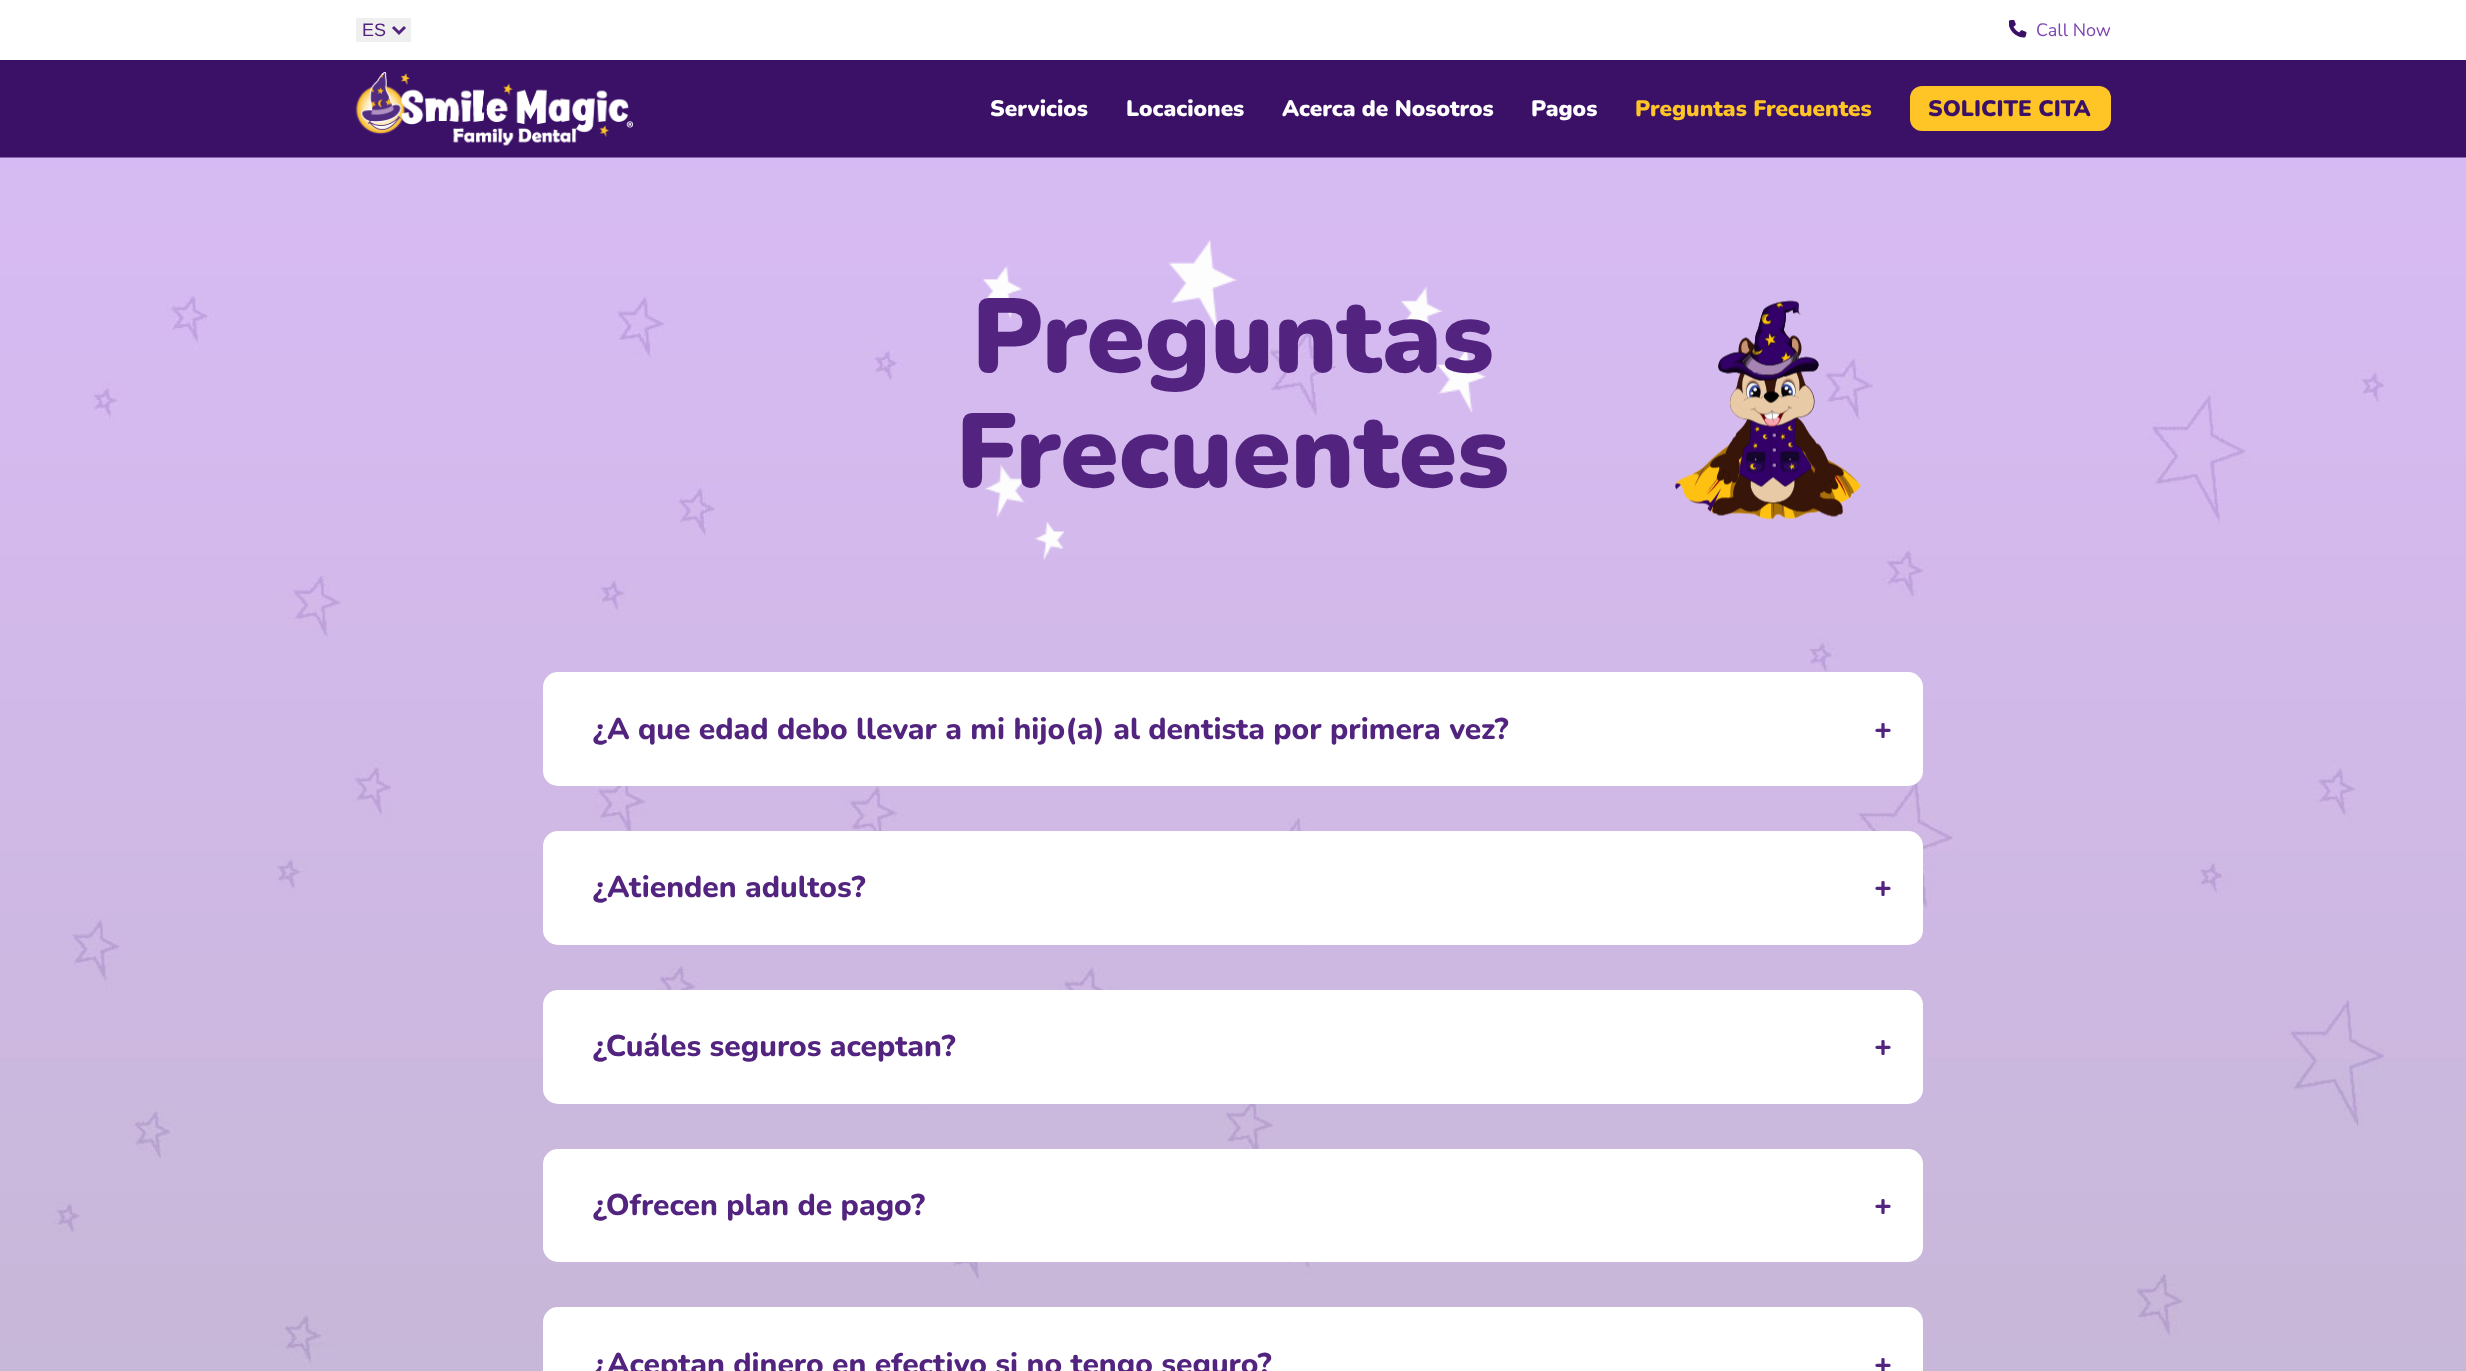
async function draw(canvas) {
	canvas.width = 2466;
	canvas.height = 1371;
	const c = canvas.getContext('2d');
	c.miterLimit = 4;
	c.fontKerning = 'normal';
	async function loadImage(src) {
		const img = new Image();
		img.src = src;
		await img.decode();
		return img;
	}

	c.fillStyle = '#fff';
	c.fillRect(0, 0, 2466, 1371);
	c.fillStyle = '#efefef';
	c.fillRect(356, 18, 55, 24);
	c.beginPath();
	c.moveTo(393, 27);
	c.lineTo(399, 33);
	c.lineTo(405, 27);
	c.strokeStyle = '#52247f';
	c.lineWidth = 3;
	c.stroke();
	c.font = '18px Liberation Sans';
	c.fillStyle = '#52247f';
	c.fillText('ES', 362, 36);
	c.drawImage(await loadImage('img1.png'), 2009, 20, 18, 18);
	c.font = '18px Nunito';
	c.fillStyle = '#7e46b5';
	c.fillText('Call Now', 2036, 36);
	c.fillStyle = '#3b1067';
	c.fillRect(0, 60, 2466, 98);
	c.drawImage(await loadImage('img2.png'), 355, 72, 278, 74);
	c.font = '900 22.5px Nunito';
	c.fillStyle = '#fff';
	for (const [text, x, y] of [
		['Servicios', 990, 116],
		['Locaciones', 1126, 116],
		['Acerca de Nosotros', 1282, 116],
		['Pagos', 1531, 116],
	]) {
		c.fillText(text, x, y);
	}
	c.fillStyle = '#ffc425';
	c.fillText('Preguntas Frecuentes', 1635, 116);
	c.beginPath();
	c.roundRect(1910, 86, 201, 45, 12);
	c.fill();
	c.fillStyle = '#3b1067';
	c.fillText('SOLICITE CITA', 1928, 116);
	c.drawImage(await loadImage('img3.png'), 0, 157, 2466, 1214);
	c.drawImage(await loadImage('img4.png'), 983, 240, 503, 320);
	c.font = '900 105px Nunito';
	c.fillStyle = '#52247f';
	c.fillText('Preguntas', 972, 372);
	c.drawImage(await loadImage('img5.png'), 1675, 300, 186, 220);
	c.fillText('Frecuentes', 956, 487);
	c.fillStyle = '#fff';
	c.beginPath();
	c.roundRect(543, 672, 1380, 114, 15);
	c.fill();
	c.font = '800 30px Nunito';
	c.fillStyle = '#52247f';
	c.fillText('¿A que edad debo llevar a mi hijo(a) al dentista por primera vez?', 593, 739);
	c.fillText('+', 1874, 739);
	c.fillStyle = '#fff';
	c.beginPath();
	c.roundRect(543, 831, 1380, 114, 15);
	c.fill();
	c.fillStyle = '#52247f';
	c.fillText('¿Atienden adultos?', 593, 897);
	c.fillText('+', 1874, 897);
	c.fillStyle = '#fff';
	c.beginPath();
	c.roundRect(543, 990, 1380, 114, 15);
	c.fill();
	c.fillStyle = '#52247f';
	c.fillText('¿Cuáles seguros aceptan?', 593, 1056);
	c.fillText('+', 1874, 1056);
	c.fillStyle = '#fff';
	c.beginPath();
	c.roundRect(543, 1149, 1380, 113, 15);
	c.fill();
	c.fillStyle = '#52247f';
	c.fillText('¿Ofrecen plan de pago?', 593, 1215);
	c.fillText('+', 1874, 1215);
	c.fillStyle = '#fff';
	c.beginPath();
	c.roundRect(543, 1307, 1380, 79, 15);
	c.fill();
	c.fillStyle = '#52247f';
	c.fillText('¿Aceptan dinero en efectivo si no tengo seguro?', 593, 1374);
	c.fillText('+', 1874, 1374);
}

draw(document.querySelector('canvas'));
